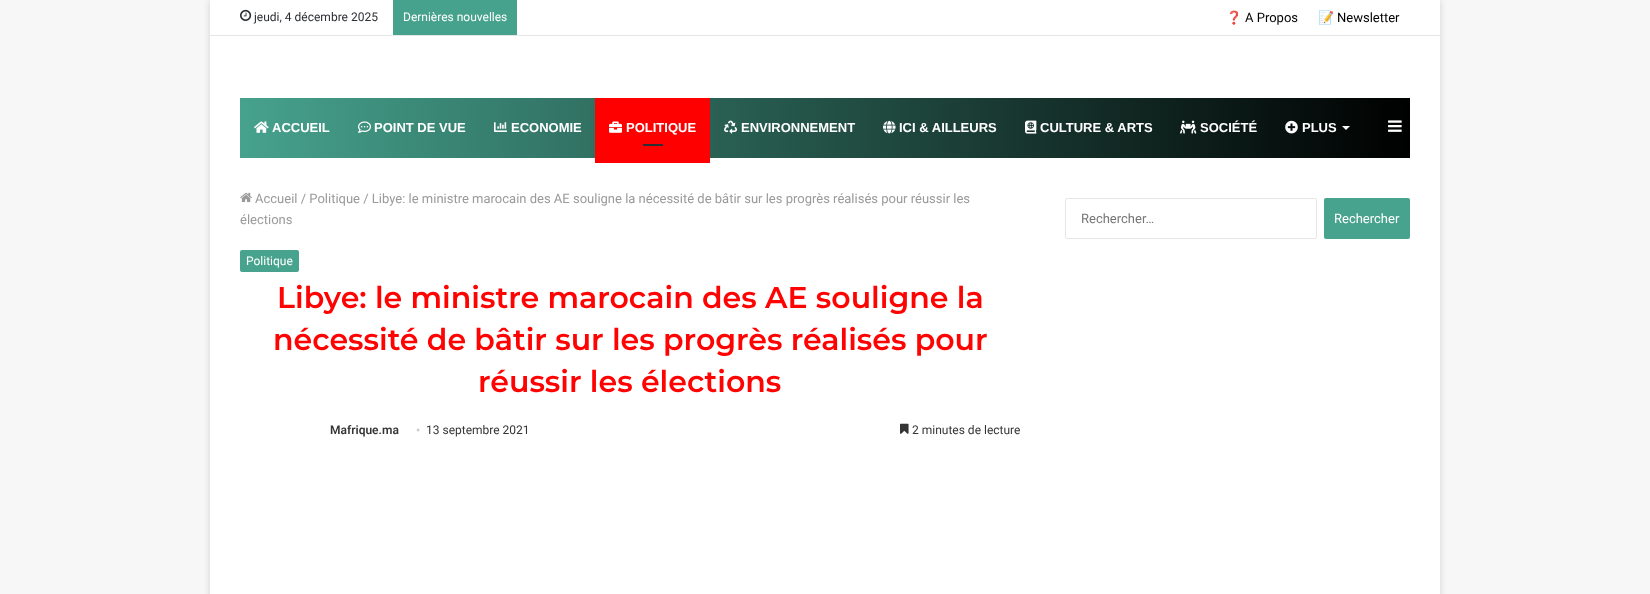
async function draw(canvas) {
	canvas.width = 1650;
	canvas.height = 594;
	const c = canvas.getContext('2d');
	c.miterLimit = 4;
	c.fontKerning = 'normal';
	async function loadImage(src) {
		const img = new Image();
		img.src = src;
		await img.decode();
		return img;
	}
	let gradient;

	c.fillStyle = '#f7f7f7';
	c.fillRect(0, 0, 1650, 594);
	c.fillStyle = '#ababab80';
	c.filter = 'blur(3.5px)';
	c.beginPath();
	c.rect(210, 1, 1230, 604);
	c.fill();
	c.filter = 'none';
	c.fillStyle = '#fff';
	c.fillRect(210, 0, 1230, 594);
	c.fillStyle = '#e6e6e6';
	c.fillRect(210, 35, 1230, 1);
	c.drawImage(await loadImage('img1.png'), 240, 9, 12, 12);
	c.font = '12px Roboto';
	c.fillStyle = '#2c2f34';
	c.fillText('jeudi, 4 décembre 2025', 254, 21);
	c.fillStyle = '#46a28d';
	c.fillRect(393, 0, 124, 35);
	c.fillStyle = '#fff';
	c.fillText('Dernières nouvelles', 403, 21);
	c.font = '13px Noto Color Emoji';
	c.fillStyle = '#000';
	c.fillText('❓', 1226, 22);
	c.font = '13px Roboto';
	c.fillText('A Propos', 1245, 22);
	c.font = '13px Noto Color Emoji';
	c.fillText('📝', 1318, 22);
	c.font = '13px Roboto';
	c.fillText('Newsletter', 1337, 22);
	gradient = c.createLinearGradient(240, 128, 1410, 128);
	gradient.addColorStop(0, '#46a28d');
	gradient.addColorStop(1, '#000');
	c.fillStyle = gradient;
	c.fillRect(240, 98, 1170, 60);
	c.drawImage(await loadImage('img2.png'), 254, 121, 15, 12);
	c.font = 'bold 13px Liberation Sans';
	c.fillStyle = '#fff';
	c.fillText('ACCUEIL', 272, 132);
	c.drawImage(await loadImage('img3.png'), 358, 121, 13, 12);
	c.fillText('POINT DE VUE', 374, 132);
	c.drawImage(await loadImage('img4.png'), 494, 122, 13, 10);
	c.fillText('ECONOMIE', 511, 132);
	c.fillStyle = '#f00';
	c.fillRect(595, 98, 115, 65);
	c.drawImage(await loadImage('img5.png'), 609, 121, 13, 12);
	c.fillStyle = '#fff';
	c.fillText('POLITIQUE', 626, 132);
	c.fillStyle = '#2c2f34';
	c.fillRect(643, 144, 20, 2);
	c.drawImage(await loadImage('img6.png'), 724, 120, 13, 14);
	c.fillStyle = '#fff';
	c.fillText('ENVIRONNEMENT', 741, 132);
	c.drawImage(await loadImage('img7.png'), 883, 120, 13, 14);
	c.fillText('ICI & AILLEURS', 899, 132);
	c.drawImage(await loadImage('img8.png'), 1025, 120, 12, 14);
	c.fillText('CULTURE & ARTS', 1040, 132);
	c.drawImage(await loadImage('img9.png'), 1180, 120, 17, 14);
	c.fillText('SOCIÉTÉ', 1200, 132);
	c.drawImage(await loadImage('img10.png'), 1285, 120, 13, 14);
	c.fillText('PLUS', 1302, 132);
	c.beginPath();
	c.moveTo(1342, 126);
	c.lineTo(1350, 126);
	c.lineTo(1346, 130);
	c.closePath();
	c.fill();
	c.drawImage(await loadImage('img11.png'), 1388, 120, 14, 12);
	c.drawImage(await loadImage('img12.png'), 240, 192, 12, 11);
	c.font = '13px Roboto';
	c.fillStyle = '#9a9a9a';
	c.fillText('Accueil / Politique / Libye: le ministre marocain des AE souligne la nécessité de bâtir sur les progrès réalisés pour réussir les', 255, 203);
	c.fillText('élections', 240, 224);
	c.fillStyle = '#48a38e';
	c.beginPath();
	c.roundRect(240, 250, 59, 22, 2);
	c.fill();
	c.font = '12px Roboto';
	c.fillStyle = '#fff';
	c.fillText('Politique', 246, 265);
	c.font = '600 30px Montserrat';
	c.fillStyle = '#ff0303';
	for (const [text, x, y] of [
		['Libye: le ministre marocain des AE souligne la', 277, 308],
		['nécessité de bâtir sur les progrès réalisés pour', 273, 350],
		['réussir les élections', 478, 392],
	]) {
		c.fillText(text, x, y);
	}
	c.font = '600 12px Roboto';
	c.fillStyle = '#353535';
	c.fillText('Mafrique.ma', 330, 434);
	c.font = '12px Liberation Serif';
	c.fillStyle = '#cdcdcd';
	c.fillText('•', 416, 434);
	c.font = '12px Roboto';
	c.fillStyle = '#353535';
	c.fillText('13 septembre 2021', 426, 434);
	c.drawImage(await loadImage('img13.png'), 900, 423, 9, 11);
	c.fillText('2 minutes de lecture', 912, 434);
	c.beginPath();
	c.roundRect(1065.5, 198.5, 251, 40, 1.5);
	c.strokeStyle = '#e6e6e6';
	c.stroke();
	c.font = '13px Roboto';
	c.fillStyle = '#767676';
	c.fillText('Rechercher…', 1081, 223);
	c.fillStyle = '#48a38e';
	c.beginPath();
	c.roundRect(1324, 198, 86, 41, 2);
	c.fill();
	c.fillStyle = '#fff';
	c.fillText('Rechercher', 1334, 223);
}

draw(document.querySelector('canvas'));
